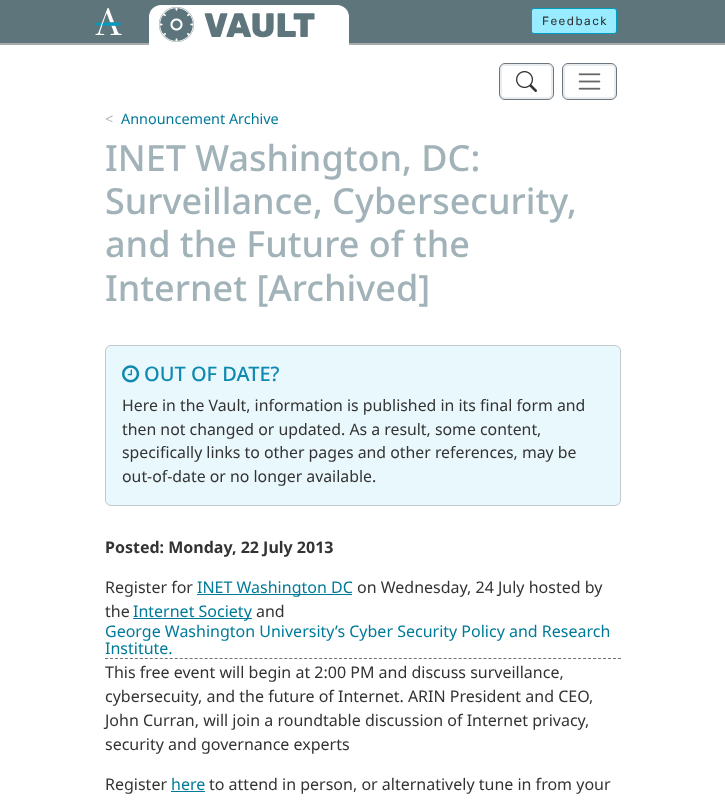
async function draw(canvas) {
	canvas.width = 725;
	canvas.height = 800;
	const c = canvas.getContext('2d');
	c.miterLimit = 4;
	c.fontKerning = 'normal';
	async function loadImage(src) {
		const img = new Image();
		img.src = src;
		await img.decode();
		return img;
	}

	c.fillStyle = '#fff';
	c.fillRect(0, 0, 725, 800);
	c.fillStyle = '#5e757c';
	c.fillRect(0, 0, 725, 43);
	c.fillStyle = '#aaa';
	c.fillRect(0, 43, 725, 2);
	c.drawImage(await loadImage('img1.png'), 94, 8, 28, 27);
	c.fillStyle = '#fff';
	c.beginPath();
	c.roundRect(149, 5, 200, 40, [12, 12, 0, 0]);
	c.fill();
	c.drawImage(await loadImage('img2.png'), 159, 7, 35, 35);
	c.font = '800 34px Rubik';
	c.fillStyle = '#5e757c';
	c.fillText('VAULT', 204, 37);
	c.fillStyle = '#99ebff';
	c.beginPath();
	c.roundRect(531.5, 8.5, 85, 25, 2.5);
	c.fill();
	c.strokeStyle = '#009bc2';
	c.stroke();
	c.letterSpacing = '1.5px';
	c.font = '12px Rubik';
	c.fillStyle = '#333';
	c.fillText('Feedback', 542, 25);
	c.beginPath();
	c.roundRect(501, 65, 51, 33, 4);
	c.strokeStyle = '#e9ecef';
	c.lineWidth = 2;
	c.stroke();
	c.beginPath();
	c.roundRect(499.5, 63.5, 54, 36, 5.5);
	c.strokeStyle = '#6c757d';
	c.lineWidth = 1;
	c.stroke();
	c.drawImage(await loadImage('img3.png'), 516, 71, 21, 21);
	c.beginPath();
	c.roundRect(564, 65, 51, 33, 4);
	c.strokeStyle = '#e9ecef';
	c.lineWidth = 2;
	c.stroke();
	c.beginPath();
	c.roundRect(562.5, 63.5, 54, 36, 5.5);
	c.strokeStyle = '#6c757d';
	c.lineWidth = 1;
	c.stroke();
	c.drawImage(await loadImage('img4.png'), 578, 73, 23, 17);
	c.letterSpacing = '0px';
	c.font = '14.4px Noto Sans';
	c.fillStyle = '#adb5bd';
	c.fillText('<', 105, 124);
	c.fillStyle = '#007a99';
	c.fillText('Announcement Archive', 121, 124);
	c.font = '500 36px Noto Sans';
	c.fillStyle = '#a1b3b8';
	for (const [text, x, y] of [
		['INET Washington, DC:', 105, 171],
		['Surveillance, Cybersecurity,', 105, 214],
		['and the Future of the', 105, 257],
		['Internet [Archived]', 105, 301],
	]) {
		c.fillText(text, x, y);
	}
	c.fillStyle = '#e9f8fd';
	c.beginPath();
	c.roundRect(105, 345, 516, 161, 6);
	c.fill();
	c.beginPath();
	c.roundRect(105.5, 345.5, 515, 160, 5.5);
	c.strokeStyle = '#0000002e';
	c.stroke();
	c.drawImage(await loadImage('img5.png'), 122, 365, 18, 18);
	c.font = '500 20px Noto Sans';
	c.fillStyle = '#0e89b0';
	c.fillText('OUT OF DATE?', 144, 381);
	c.font = '15.85px Noto Sans';
	c.fillStyle = '#333';
	for (const [text, x, y] of [
		['Here in the Vault, information is published in its final form and', 122, 411],
		['then not changed or updated. As a result, some content,', 122, 435],
		['specifically links to other pages and other references, may be', 122, 458],
		['out-of-date or no longer available.', 122, 482],
	]) {
		c.fillText(text, x, y);
	}
	c.font = 'bold 16px Noto Sans';
	c.fillText('Posted: Monday, 22 July 2013', 105, 553);
	c.font = '16px Noto Sans';
	c.fillText('Register for', 105, 593);
	c.fillStyle = '#007a99';
	c.fillRect(197, 594, 155, 1);
	c.fillText('INET Washington DC', 197, 593);
	c.fillStyle = '#333';
	c.fillText('on Wednesday, 24 July hosted by', 357, 593);
	c.fillText('the', 105, 617);
	c.fillStyle = '#007a99';
	c.fillRect(133, 618, 119, 1);
	c.fillText('Internet Society', 133, 617);
	c.fillStyle = '#333';
	c.fillText('and', 256, 617);
	c.beginPath();
	c.moveTo(105, 658.5);
	c.lineTo(621, 658.5);
	c.strokeStyle = '#6c757d';
	c.setLineDash([3, 1.98]);
	c.stroke();
	c.fillStyle = '#007a99';
	c.fillText('George Washington University’s Cyber Security Policy and Research', 105, 637);
	c.fillText('Institute.', 105, 654);
	c.fillStyle = '#333';
	for (const [text, x, y] of [
		['This free event will begin at 2:00 PM and discuss surveillance,', 105, 678],
		['cybersecuity, and the future of Internet. ARIN President and CEO,', 105, 702],
		['John Curran, will join a roundtable discussion of Internet privacy,', 105, 726],
		['security and governance experts', 105, 750],
		['Register', 105, 790],
	]) {
		c.fillText(text, x, y);
	}
	c.fillStyle = '#007a99';
	c.fillText('here', 171, 790);
	c.fillRect(171, 791, 34, 1);
	c.fillStyle = '#333';
	c.fillText('to attend in person, or alternatively tune in from your', 209, 790);
}

draw(document.querySelector('canvas'));
